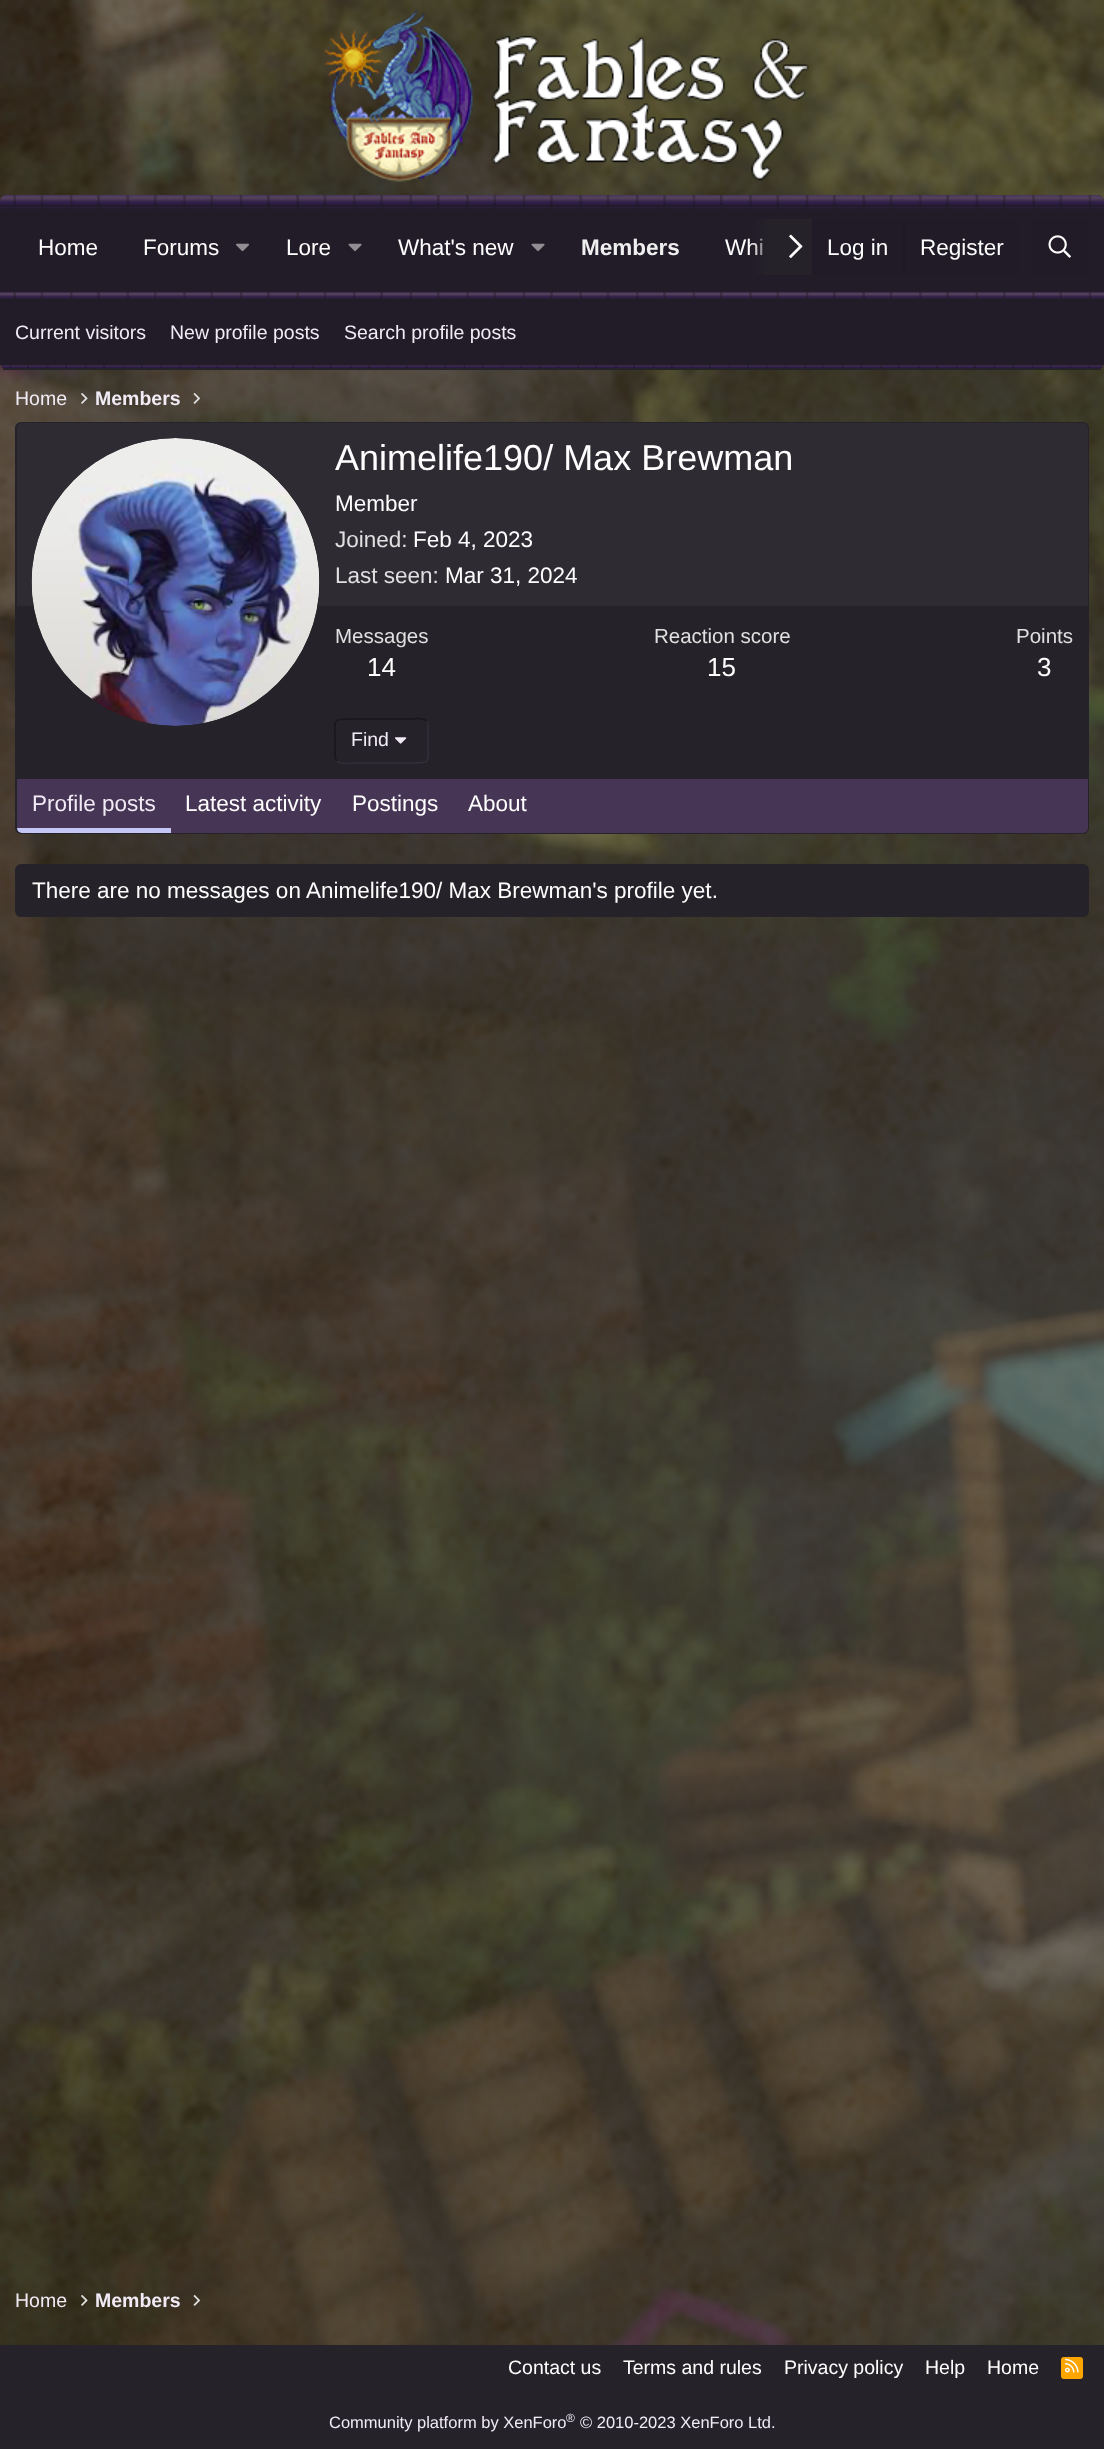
async function draw(canvas) {
	canvas.width = 1104;
	canvas.height = 2449;
	const c = canvas.getContext('2d');
	c.miterLimit = 4;
	c.fontKerning = 'normal';
	async function loadImage(src) {
		const img = new Image();
		img.src = src;
		await img.decode();
		return img;
	}
	let gradient;

	c.fillStyle = '#fff';
	c.fillRect(0, 0, 1104, 2449);
	c.drawImage(await loadImage('img1.png'), 0, 0, 1104, 2345);
	c.drawImage(await loadImage('img2.png'), 324, 9, 485, 173);
	c.fillStyle = '#252329';
	c.beginPath();
	c.roundRect(0, 195, 1104, 104, [6, 6, 0, 0]);
	c.fill();
	c.drawImage(await loadImage('img3.png'), 0, 195, 1104, 104);
	c.font = '22.5px Liberation Sans';
	c.fillStyle = '#fefefe';
	c.fillText('Home', 38, 255);
	c.fillText('Forums', 143, 255);
	c.drawImage(await loadImage('img4.png'), 236, 243, 13, 9);
	c.fillText('Lore', 286, 255);
	c.drawImage(await loadImage('img5.png'), 348, 243, 14, 9);
	c.fillText('What\'s new', 398, 255);
	c.drawImage(await loadImage('img5.png'), 531, 243, 14, 9);
	c.font = 'bold 22.5px Liberation Sans';
	c.fillStyle = '#efefef';
	c.fillText('Members', 581, 255);
	c.font = '22.5px Liberation Sans';
	c.fillStyle = '#fefefe';
	c.fillText('Whi', 725, 255);
	gradient = c.createLinearGradient(752, 247, 812, 247);
	gradient.addColorStop(0, '#25232900');
	gradient.addColorStop(0.33, '#252329');
	c.fillStyle = gradient;
	c.fillRect(752, 219, 60, 56);
	c.drawImage(await loadImage('img6.png'), 789, 234, 14, 24);
	c.fillStyle = '#201b26';
	c.beginPath();
	c.roundRect(812, 219, 207, 56, [6, 6, 0, 0]);
	c.fill();
	c.fillStyle = '#fefefe';
	c.fillText('Log in', 827, 255);
	c.fillStyle = '#1e1a23';
	c.fillRect(903, 219, 2, 56);
	c.fillStyle = '#fefefe';
	c.fillText('Register', 920, 255);
	c.fillStyle = '#201b26';
	c.beginPath();
	c.roundRect(1031, 219, 58, 56, [6, 6, 0, 0]);
	c.fill();
	c.drawImage(await loadImage('img7.png'), 1048, 235, 23, 23);
	c.drawImage(await loadImage('img8.png'), 0, 299, 1104, 69);
	c.fillStyle = '#252329';
	c.fillRect(3, 368, 1098, 2);
	c.font = '19.5px Liberation Sans';
	c.fillStyle = '#f1ebf6';
	for (const [text, x, y] of [
		['Current visitors', 15, 339],
		['New profile posts', 170, 339],
		['Search profile posts', 344, 339],
		['Home', 15, 405],
	]) {
		c.fillText(text, x, y);
	}
	c.drawImage(await loadImage('img9.png'), 81, 393, 7, 11);
	c.font = 'bold 19.5px Liberation Sans';
	c.fillText('Members', 95, 405);
	c.drawImage(await loadImage('img10.png'), 193, 393, 8, 11);
	c.fillStyle = '#252329';
	c.beginPath();
	c.roundRect(16, 423, 1072, 410, 5);
	c.fill();
	c.strokeStyle = '#252329';
	c.lineWidth = 2;
	c.stroke();
	c.fillStyle = '#2e2b33';
	c.beginPath();
	c.roundRect(17, 423, 1071, 185, [5, 5, 0, 0]);
	c.fill();
	c.fillStyle = '#252329';
	c.fillRect(17, 606, 1071, 2);
	c.beginPath();
	c.arc(176, 582, 144, 0, 2 * Math.PI);
	c.fill();
	c.drawImage(await loadImage('img11.png'), 31, 438, 289, 288);
	c.font = '36px Liberation Sans';
	c.fillStyle = '#fefefe';
	c.fillText('Animelife190/ Max Brewman', 335, 470);
	c.font = '22.5px Liberation Sans';
	c.fillText('Member', 335, 511);
	c.fillStyle = '#e0e0e0';
	c.fillText('Joined:', 335, 547);
	c.fillStyle = '#fefefe';
	c.fillText('Feb 4, 2023', 413, 547);
	c.fillStyle = '#e0e0e0';
	c.fillText('Last seen:', 335, 583);
	c.fillStyle = '#fefefe';
	c.fillText('Mar 31, 2024', 445, 583);
	c.font = '20.5px Liberation Sans';
	c.fillStyle = '#e0e0e0';
	c.fillText('Messages', 335, 643);
	c.font = '26px Liberation Sans';
	c.fillStyle = '#fefefe';
	c.fillText('14', 367, 676);
	c.font = '20.5px Liberation Sans';
	c.fillStyle = '#e0e0e0';
	c.fillText('Reaction score', 654, 643);
	c.font = '26px Liberation Sans';
	c.fillStyle = '#fefefe';
	c.fillText('15', 707, 676);
	c.font = '20.5px Liberation Sans';
	c.fillStyle = '#e0e0e0';
	c.fillText('Points', 1016, 643);
	c.font = '26px Liberation Sans';
	c.fillStyle = '#fefefe';
	c.fillText('3', 1037, 676);
	c.beginPath();
	c.moveTo(426.5, 721);
	c.bezierCurveTo(429, 723, 428, 727, 428, 730);
	c.lineTo(428, 741);
	c.bezierCurveTo(428, 764, 432, 763, 409, 763);
	c.lineTo(354, 763);
	c.bezierCurveTo(353.5, 763, 340.5, 765, 337, 761);
	c.strokeStyle = '#312f37';
	c.lineWidth = 1.5;
	c.stroke();
	c.beginPath();
	c.moveTo(337, 761);
	c.bezierCurveTo(334.5, 759, 335, 755, 335, 752);
	c.lineTo(335, 741);
	c.bezierCurveTo(335, 718, 331.5, 719, 354, 719);
	c.lineTo(409, 719);
	c.bezierCurveTo(410, 719, 423, 717, 426.5, 721);
	c.strokeStyle = '#19171b';
	c.stroke();
	c.font = '19.5px Liberation Sans';
	c.fillStyle = '#f1ebf6';
	c.fillText('Find', 351, 746);
	c.drawImage(await loadImage('img12.png'), 395, 737, 12, 7);
	c.fillStyle = '#473555';
	c.beginPath();
	c.roundRect(17, 779, 1071, 54, [0, 0, 5, 5]);
	c.fill();
	c.fillStyle = '#c4c6f4';
	c.beginPath();
	c.roundRect(17, 828, 154, 5, [0, 0, 0, 5]);
	c.fill();
	c.font = '22.5px Liberation Sans';
	c.fillStyle = '#f1ebf6';
	c.fillText('Profile posts', 32, 811);
	c.fillStyle = '#fefefe';
	for (const [text, x, y] of [
		['Latest activity', 185, 811],
		['Postings', 352, 811],
		['About', 468, 811],
	]) {
		c.fillText(text, x, y);
	}
	c.fillStyle = '#252329';
	c.beginPath();
	c.roundRect(16, 865, 1072, 51, 5);
	c.fill();
	c.strokeStyle = '#252329';
	c.lineWidth = 2;
	c.stroke();
	c.fillStyle = '#fefefe';
	c.fillText('There are no messages on Animelife190/ Max Brewman\'s profile yet.', 32, 898);
	c.font = '19.5px Liberation Sans';
	c.fillStyle = '#f1ebf6';
	c.fillText('Home', 15, 2307);
	c.drawImage(await loadImage('img13.png'), 81, 2295, 7, 11);
	c.font = 'bold 19.5px Liberation Sans';
	c.fillText('Members', 95, 2307);
	c.drawImage(await loadImage('img14.png'), 193, 2295, 8, 11);
	c.fillStyle = '#252329';
	c.fillRect(0, 2345, 1104, 104);
	c.font = '19.5px Liberation Sans';
	c.fillStyle = '#fefefe';
	for (const [text, x, y] of [
		['Contact us', 508, 2374],
		['Terms and rules', 623, 2374],
		['Privacy policy', 784, 2374],
		['Help', 925, 2374],
		['Home', 987, 2374],
	]) {
		c.fillText(text, x, y);
	}
	c.fillStyle = '#ffa500';
	c.beginPath();
	c.roundRect(1061, 2357, 22, 22, 3);
	c.fill();
	c.drawImage(await loadImage('img15.png'), 1065, 2358, 14, 15);
	c.font = '16.5px Liberation Sans';
	c.fillStyle = '#f1ebf6';
	c.fillText('Community platform by XenForo', 329, 2428);
	c.font = '12px Liberation Sans';
	c.fillText('®', 566, 2422);
	c.font = '16.5px Liberation Sans';
	c.fillText('© 2010-2023 XenForo Ltd.', 580, 2428);
}

draw(document.querySelector('canvas'));
